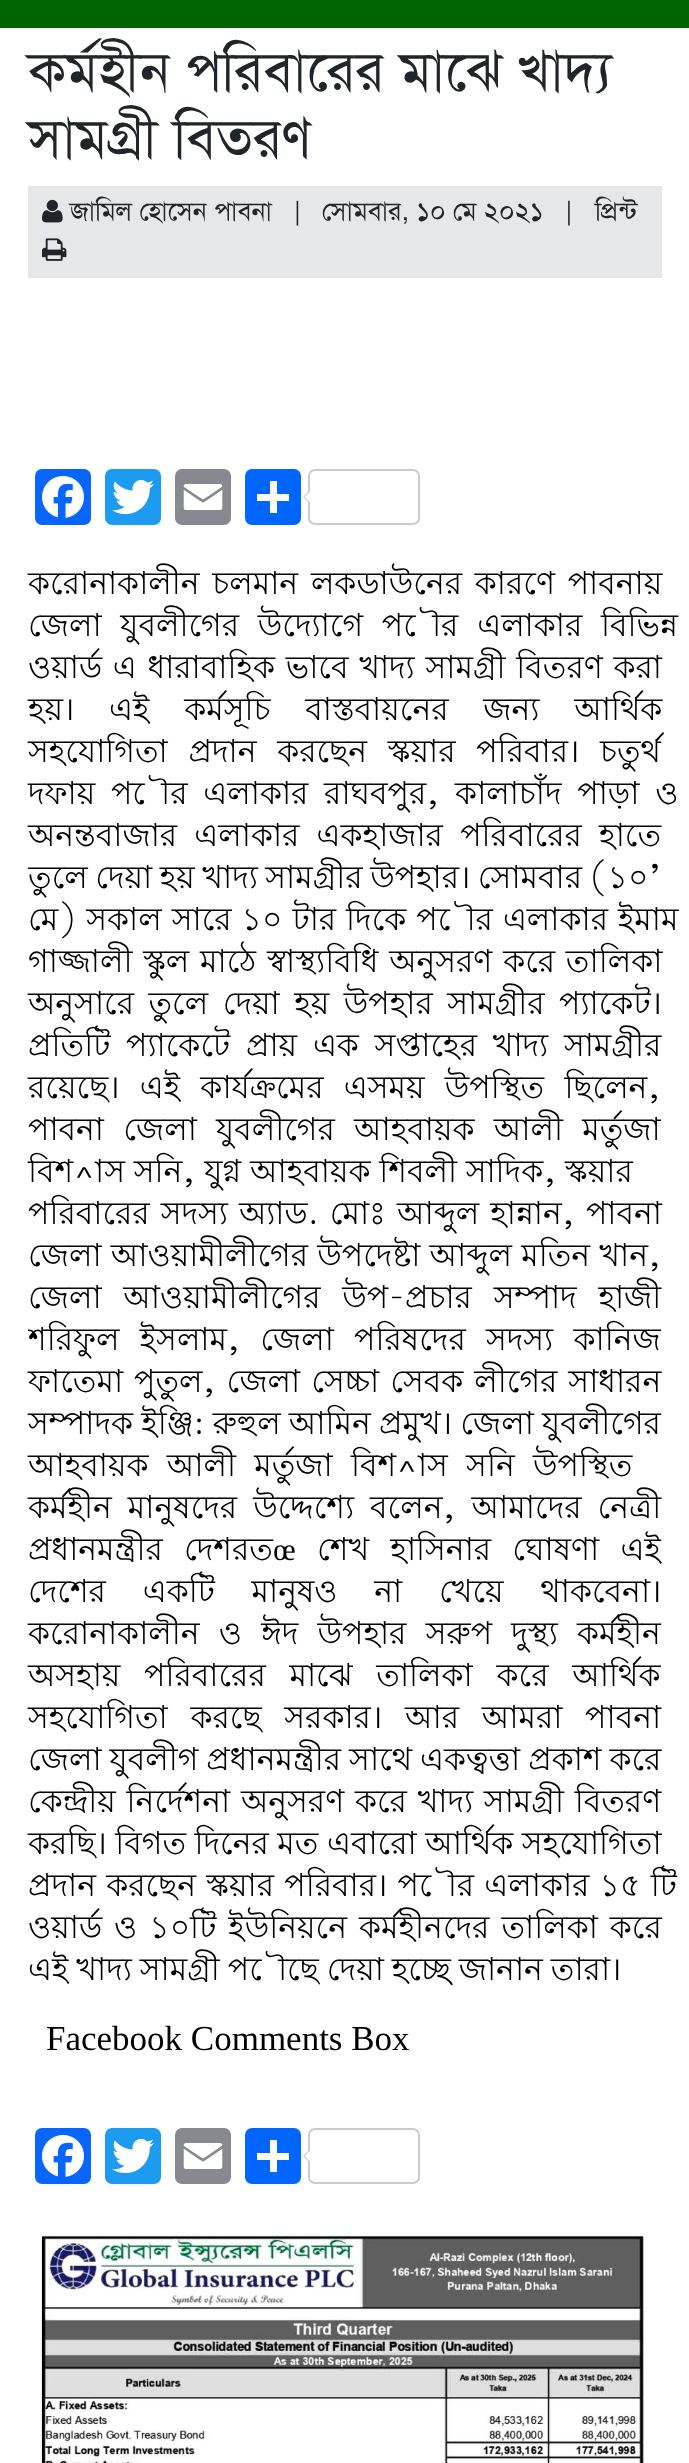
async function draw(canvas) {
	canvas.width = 689;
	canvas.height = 2463;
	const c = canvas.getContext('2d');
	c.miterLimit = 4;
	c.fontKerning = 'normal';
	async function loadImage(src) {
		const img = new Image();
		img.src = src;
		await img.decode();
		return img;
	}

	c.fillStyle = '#fff';
	c.fillRect(0, 0, 689, 2463);
	c.fillStyle = '#006400';
	c.fillRect(0, 0, 689, 28);
	c.font = '56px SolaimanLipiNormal';
	c.fillStyle = '#212529';
	c.fillText('কর্মহীন পরিবারের মাঝে খাদ্য', 28, 90);
	c.fillText('সামগ্রী বিতরণ', 28, 157);
	c.fillStyle = '#e6e7e8';
	c.fillRect(28, 186, 634, 92);
	c.drawImage(await loadImage('img1.png'), 42, 199, 21, 24);
	c.font = '26.25px SolaimanLipiNormal';
	c.fillStyle = '#212529';
	for (const [text, x, y] of [
		['জামিল হোসেন পাবনা', 70, 220],
		['|', 294, 220],
		['সোমবার, ১০ মে ২০২১   |', 322, 220],
		['প্রিন্ট', 595, 220],
	]) {
		c.fillText(text, x, y);
	}
	c.drawImage(await loadImage('img2.png'), 42, 238, 25, 23);
	c.fillStyle = '#0866ff';
	c.beginPath();
	c.roundRect(35, 469, 56, 56, 7);
	c.fill();
	c.drawImage(await loadImage('img3.png'), 42, 476, 42, 42);
	c.fillStyle = '#1d9bf0';
	c.beginPath();
	c.roundRect(105, 469, 56, 56, 7);
	c.fill();
	c.drawImage(await loadImage('img4.png'), 112, 479, 42, 36);
	c.fillStyle = '#888990';
	c.beginPath();
	c.roundRect(175, 469, 56, 56, 7);
	c.fill();
	c.drawImage(await loadImage('img5.png'), 183, 484, 40, 26);
	c.fillStyle = '#0166ff';
	c.beginPath();
	c.roundRect(245, 469, 56, 56, 7);
	c.fill();
	c.fillStyle = '#fff';
	c.fillRect(270, 481, 7, 32);
	c.fillRect(257, 494, 32, 7);
	c.beginPath();
	c.roundRect(309, 470, 110, 54, 6);
	c.strokeStyle = '#ccc';
	c.lineWidth = 2;
	c.stroke();
	c.fillStyle = '#ccc';
	c.beginPath();
	c.moveTo(310, 490);
	c.lineTo(310, 504);
	c.lineTo(303, 497);
	c.closePath();
	c.fill();
	c.fillStyle = '#fff';
	c.beginPath();
	c.moveTo(311.5, 490);
	c.lineTo(311.5, 504);
	c.lineTo(304.5, 497);
	c.closePath();
	c.fill();
	c.wordSpacing = '4px';
	c.font = '31.5px Lohit Bengali';
	c.fillStyle = '#000';
	c.fillText('করোনাকালীন চলমান লকডাউনের কারণে পাবনায়', 28, 594);
	c.wordSpacing = '10px';
	c.fillText('জেলা যুবলীগের উদ্যোগে পৌর এলাকার বিভিন্ন', 28, 636);
	c.wordSpacing = '2px';
	c.fillText('ওয়ার্ড এ ধারাবাহিক ভাবে খাদ্য সামগ্রী বিতরণ করা', 28, 678);
	c.wordSpacing = '26px';
	c.fillText('হয়। এই কর্মসূচি বাস্তবায়নের জন্য আর্থিক', 28, 720);
	c.wordSpacing = '12px';
	c.fillText('সহযোগিতা প্রদান করছেন স্কয়ার পরিবার। চতুর্থ', 28, 762);
	c.wordSpacing = '7px';
	c.fillText('দফায় পৌর এলাকার রাঘবপুর, কালাচাঁদ পাড়া ও', 28, 804);
	c.wordSpacing = '8.5px';
	c.fillText('অনন্তবাজার এলাকার একহাজার পরিবারের হাতে', 28, 846);
	c.save();
	c.beginPath();
	c.rect(28, 441, 634, 1780);
	c.clip();
	c.wordSpacing = '-1.25px';
	c.fillText('তুলে দেয়া হয় খাদ্য সামগ্রীর উপহার। সোমবার (১০’', 28, 888);
	c.restore();
	c.wordSpacing = '1.25px';
	c.fillText('মে) সকাল সারে ১০ টার দিকে পৌর এলাকার ইমাম', 28, 930);
	c.wordSpacing = '2px';
	c.fillText('গাজ্জালী স্কুল মাঠে স্বাস্থ্যবিধি অনুসরণ করে তালিকা', 28, 972);
	c.wordSpacing = '5.75px';
	c.fillText('অনুসারে তুলে দেয়া হয় উপহার সামগ্রীর প্যাকেট।', 28, 1014);
	c.wordSpacing = '7px';
	c.fillText('প্রতিটি প্যাকেটে প্রায় এক সপ্তাহের খাদ্য সামগ্রীর', 28, 1056);
	c.wordSpacing = '11.5px';
	c.fillText('রয়েছে। এই কার্যক্রমের এসময় উপস্থিত ছিলেন,', 28, 1098);
	c.wordSpacing = '10.5px';
	c.fillText('পাবনা জেলা যুবলীগের আহবায়ক আলী মর্তুজা', 28, 1140);
	c.wordSpacing = '0px';
	c.fillText('বিশ^াস সনি, যুগ্ন আহবায়ক শিবলী সাদিক, স্কয়ার', 28, 1182);
	c.wordSpacing = '2.25px';
	c.fillText('পরিবারের সদস্য অ্যাড. মোঃ আব্দুল হান্নান, পাবনা', 28, 1224);
	c.wordSpacing = '0.5px';
	c.fillText('জেলা আওয়ামীলীগের উপদেষ্টা আব্দুল মতিন খান,', 28, 1266);
	c.wordSpacing = '13px';
	c.fillText('জেলা আওয়ামীলীগের উপ-প্রচার সম্পাদ হাজী', 28, 1308);
	c.save();
	c.beginPath();
	c.rect(28, 441, 634, 1780);
	c.clip();
	c.wordSpacing = '11.5px';
	c.fillText('শরিফুল ইসলাম, জেলা পরিষদের সদস্য কানিজ', 28, 1350);
	c.restore();
	c.wordSpacing = '2.25px';
	c.fillText('ফাতেমা পুতুল, জেলা সেচ্চা সেবক লীগের সাধারন', 28, 1392);
	c.wordSpacing = '-0.5px';
	c.fillText('সম্পাদক ইঞ্জি: রুহুল আমিন প্রমুখ। জেলা যুবলীগের', 28, 1434);
	c.wordSpacing = '9.5px';
	c.fillText('আহবায়ক আলী মর্তুজা বিশ^াস সনি উপস্থিত', 28, 1476);
	c.wordSpacing = '7.25px';
	c.fillText('কর্মহীন মানুষদের উদ্দেশ্যে বলেন, আমাদের নেত্রী', 28, 1518);
	c.wordSpacing = '12.5px';
	c.fillText('প্রধানমন্ত্রীর দেশরত', 28, 1560);
	c.wordSpacing = '0px';
	c.font = '31.5px Liberation Serif';
	c.fillText('œ', 273, 1560);
	c.wordSpacing = '12.5px';
	c.font = '31.5px Lohit Bengali';
	c.fillText('শেখ হাসিনার ঘোষণা এই', 317, 1560);
	c.wordSpacing = '28px';
	c.fillText('দেশের একটি মানুষও না খেয়ে থাকবেনা।', 28, 1602);
	c.wordSpacing = '10.5px';
	c.fillText('করোনাকালীন ও ঈদ উপহার সরুপ দুস্থ্য কর্মহীন', 28, 1644);
	c.wordSpacing = '15px';
	c.fillText('অসহায় পরিবারের মাঝে তালিকা করে আর্থিক', 28, 1686);
	c.wordSpacing = '14px';
	c.fillText('সহযোগিতা করছে সরকার। আর আমরা পাবনা', 28, 1728);
	c.wordSpacing = '-0.75px';
	c.fillText('জেলা যুবলীগ প্রধানমন্ত্রীর সাথে একত্বত্তা প্রকাশ করে', 28, 1770);
	c.wordSpacing = '2px';
	c.fillText('কেন্দ্রীয় নির্দেশনা অনুসরণ করে খাদ্য সামগ্রী বিতরণ', 28, 1812);
	c.wordSpacing = '-0.25px';
	c.fillText('করছি। বিগত দিনের মত এবারো আর্থিক সহযোগিতা', 28, 1854);
	c.wordSpacing = '1.5px';
	c.fillText('প্রদান করছেন স্কয়ার পরিবার। পৌর এলাকার ১৫ টি', 28, 1896);
	c.wordSpacing = '3.25px';
	c.fillText('ওয়ার্ড ও ১০টি ইউনিয়নে কর্মহীনদের তালিকা করে', 28, 1938);
	c.wordSpacing = '-0.75px';
	c.fillText('এই খাদ্য সামগ্রী পৌছে দেয়া হচ্ছে জানান তারা।', 28, 1980);
	c.wordSpacing = '0px';
	c.font = '35px Liberation Serif';
	c.fillText('Facebook Comments Box', 46, 2050);
	c.fillStyle = '#0866ff';
	c.beginPath();
	c.roundRect(35, 2128, 56, 56, 7);
	c.fill();
	c.drawImage(await loadImage('img3.png'), 42, 2135, 42, 42);
	c.fillStyle = '#1d9bf0';
	c.beginPath();
	c.roundRect(105, 2128, 56, 56, 7);
	c.fill();
	c.drawImage(await loadImage('img4.png'), 112, 2138, 42, 36);
	c.fillStyle = '#888990';
	c.beginPath();
	c.roundRect(175, 2128, 56, 56, 7);
	c.fill();
	c.drawImage(await loadImage('img5.png'), 183, 2143, 40, 26);
	c.fillStyle = '#0166ff';
	c.beginPath();
	c.roundRect(245, 2128, 56, 56, 7);
	c.fill();
	c.fillStyle = '#fff';
	c.fillRect(270, 2140, 7, 32);
	c.fillRect(257, 2153, 32, 7);
	c.beginPath();
	c.roundRect(309, 2129, 110, 54, 6);
	c.stroke();
	c.fillStyle = '#ccc';
	c.beginPath();
	c.moveTo(310, 2149);
	c.lineTo(310, 2163);
	c.lineTo(303, 2156);
	c.closePath();
	c.fill();
	c.fillStyle = '#fff';
	c.beginPath();
	c.moveTo(311.5, 2149);
	c.lineTo(311.5, 2163);
	c.lineTo(304.5, 2156);
	c.closePath();
	c.fill();
	c.drawImage(await loadImage('img6.png'), 40, 2232, 605, 231);
}

draw(document.querySelector('canvas'));
